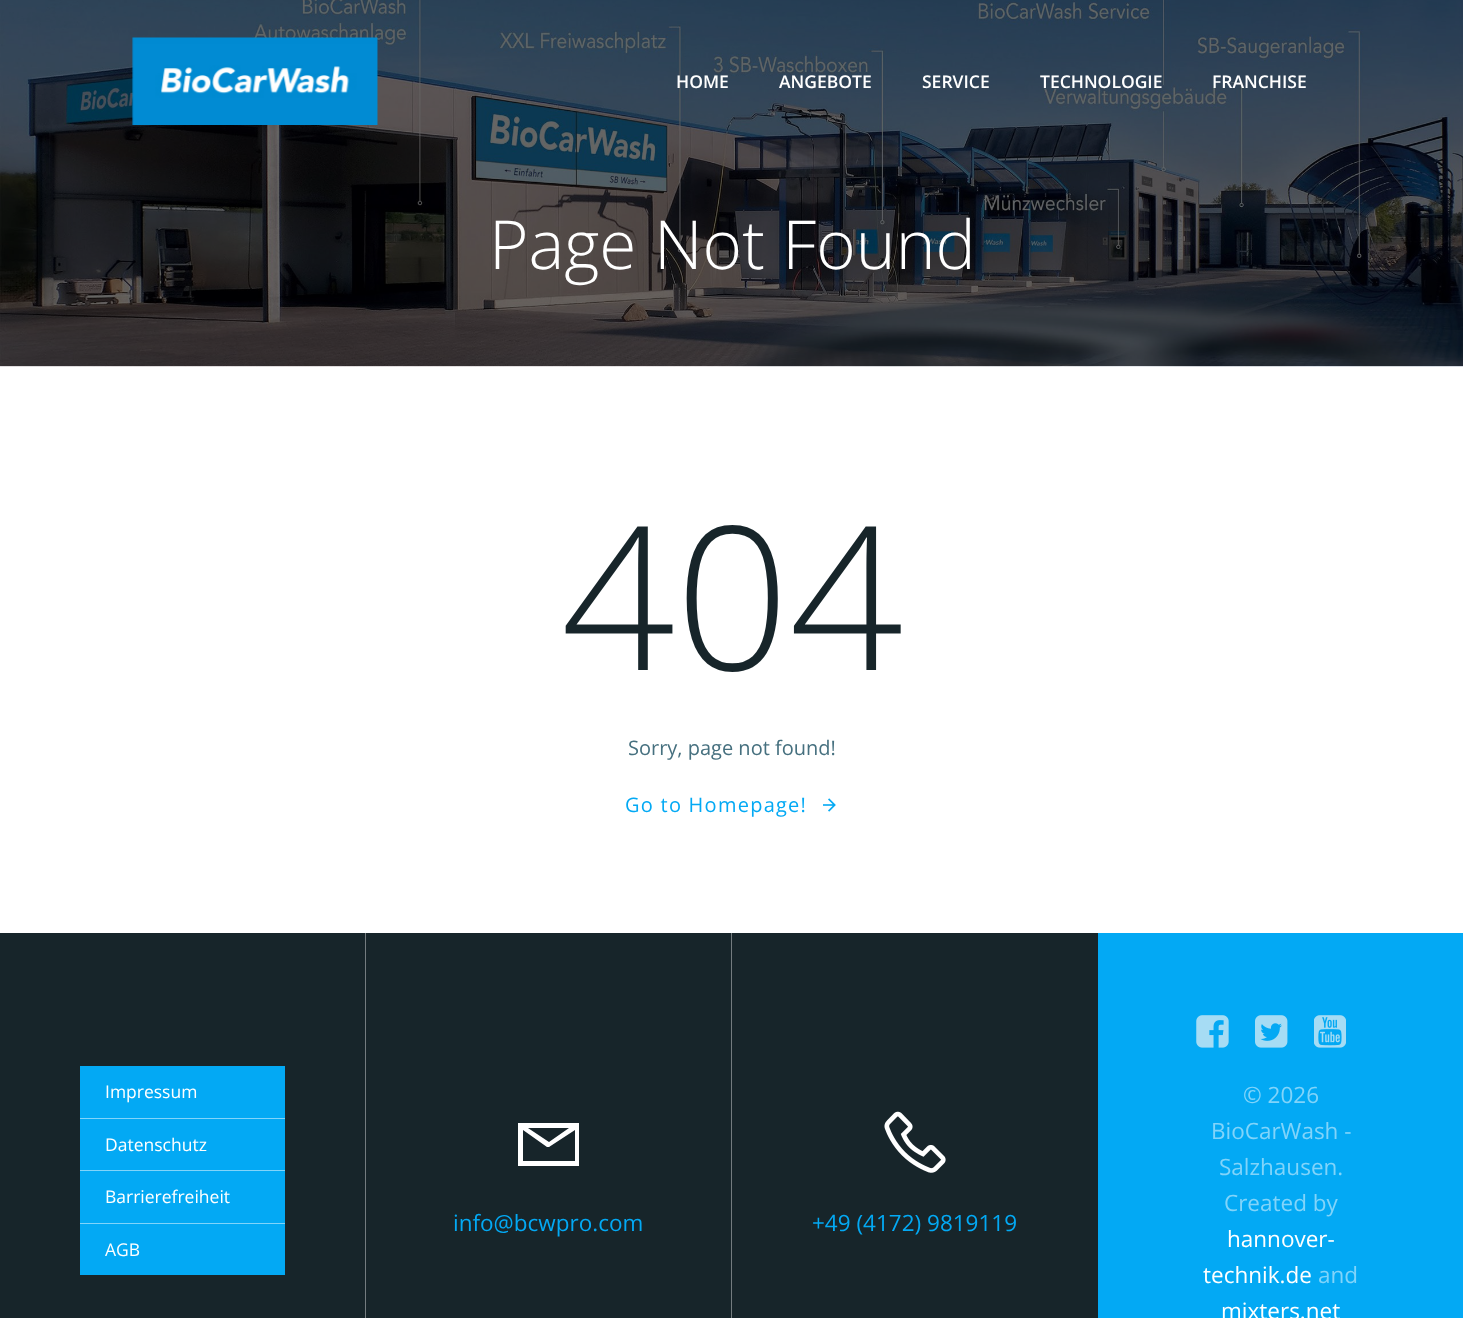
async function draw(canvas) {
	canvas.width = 1463;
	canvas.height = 1318;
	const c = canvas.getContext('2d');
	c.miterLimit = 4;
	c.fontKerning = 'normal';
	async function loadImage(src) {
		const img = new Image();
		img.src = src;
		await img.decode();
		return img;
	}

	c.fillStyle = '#fff';
	c.fillRect(0, 0, 1463, 1318);
	c.drawImage(await loadImage('img2.png'), 0, 0, 1463, 367);
	c.drawImage(await loadImage('img1.png'), 132, 37, 246, 88);
	c.font = '600 17.5px Open Sans';
	for (const [text, x, y] of [
		['HOME', 676, 88],
		['ANGEBOTE', 779, 88],
		['SERVICE', 922, 88],
		['TECHNOLOGIE', 1040, 88],
		['FRANCHISE', 1212, 88],
	]) {
		c.fillText(text, x, y);
	}
	c.font = '300 67.5px Open Sans';
	c.fillText('Page Not Found', 489, 269);
	c.font = '300 200px Open Sans';
	c.fillStyle = '#17252a';
	c.fillText('404', 561, 670);
	c.font = '20px Open Sans';
	c.fillStyle = '#46707f';
	c.fillText('Sorry, page not found!', 628, 755);
	c.letterSpacing = '1.25px';
	c.fillStyle = '#03a9f4';
	c.fillText('Go to Homepage!', 625, 812);
	c.drawImage(await loadImage('img3.png'), 823, 798, 13, 14);
	for (const [x, y, w, h, color] of [
		[0, 933, 1098, 385, '#17252a'],
		[365, 933, 1, 385, '#747c7f'],
		[80, 1066, 205, 52, '#03a9f4'],
		[80, 1118, 205, 1, '#81d4fa'],
	]) {
		c.fillStyle = color;
		c.fillRect(x, y, w, h);
	}
	c.letterSpacing = '0px';
	c.font = '17.5px Open Sans';
	c.fillStyle = '#fff';
	c.fillText('Impressum', 105, 1098);
	c.fillStyle = '#03a9f4';
	c.fillRect(80, 1119, 205, 51);
	c.fillStyle = '#81d4fa';
	c.fillRect(80, 1170, 205, 1);
	c.fillStyle = '#fff';
	c.fillText('Datenschutz', 105, 1151);
	c.fillStyle = '#03a9f4';
	c.fillRect(80, 1171, 205, 52);
	c.fillStyle = '#81d4fa';
	c.fillRect(80, 1223, 205, 1);
	c.fillStyle = '#fff';
	c.fillText('Barrierefreiheit', 105, 1203);
	c.fillStyle = '#03a9f4';
	c.fillRect(80, 1224, 205, 51);
	c.fillStyle = '#fff';
	c.fillText('AGB', 105, 1256);
	c.fillStyle = '#747c7f';
	c.fillRect(731, 933, 1, 385);
	c.fillStyle = '#fff';
	c.beginPath();
	c.moveTo(518, 1123);
	c.lineTo(579, 1123);
	c.lineTo(579, 1166);
	c.lineTo(518, 1166);
	c.closePath();
	c.moveTo(528, 1128);
	c.lineTo(549, 1142);
	c.lineTo(569, 1128);
	c.closePath();
	c.moveTo(523, 1130);
	c.lineTo(523, 1161);
	c.lineTo(575, 1161);
	c.lineTo(575, 1130);
	c.lineTo(549, 1147);
	c.lineTo(547, 1147);
	c.closePath();
	c.fill();
	c.font = '22.5px Open Sans';
	c.fillStyle = '#03a9f4';
	c.fillText('info@bcwpro.com', 453, 1231);
	c.drawImage(await loadImage('img4.png'), 884, 1111, 62, 62);
	c.fillText('+49 (4172) 9819119', 812, 1231);
	c.fillRect(1098, 933, 365, 385);
	c.drawImage(await loadImage('img5.png'), 1196, 1015, 33, 33);
	c.drawImage(await loadImage('img6.png'), 1255, 1015, 33, 33);
	c.drawImage(await loadImage('img7.png'), 1314, 1015, 32, 33);
	c.fillStyle = '#81d4fa';
	for (const [text, x, y] of [
		['© 2026', 1243, 1103],
		['BioCarWash -', 1211, 1139],
		['Salzhausen.', 1219, 1175],
		['Created by', 1224, 1211],
	]) {
		c.fillText(text, x, y);
	}
	c.fillStyle = '#fff';
	c.fillText('hannover-', 1227, 1247);
	c.fillText('technik.de', 1203, 1283);
	c.fillStyle = '#81d4fa';
	c.fillText('and', 1318, 1283);
	c.fillStyle = '#fff';
	c.fillText('mixters.net', 1221, 1319);
}

draw(document.querySelector('canvas'));
